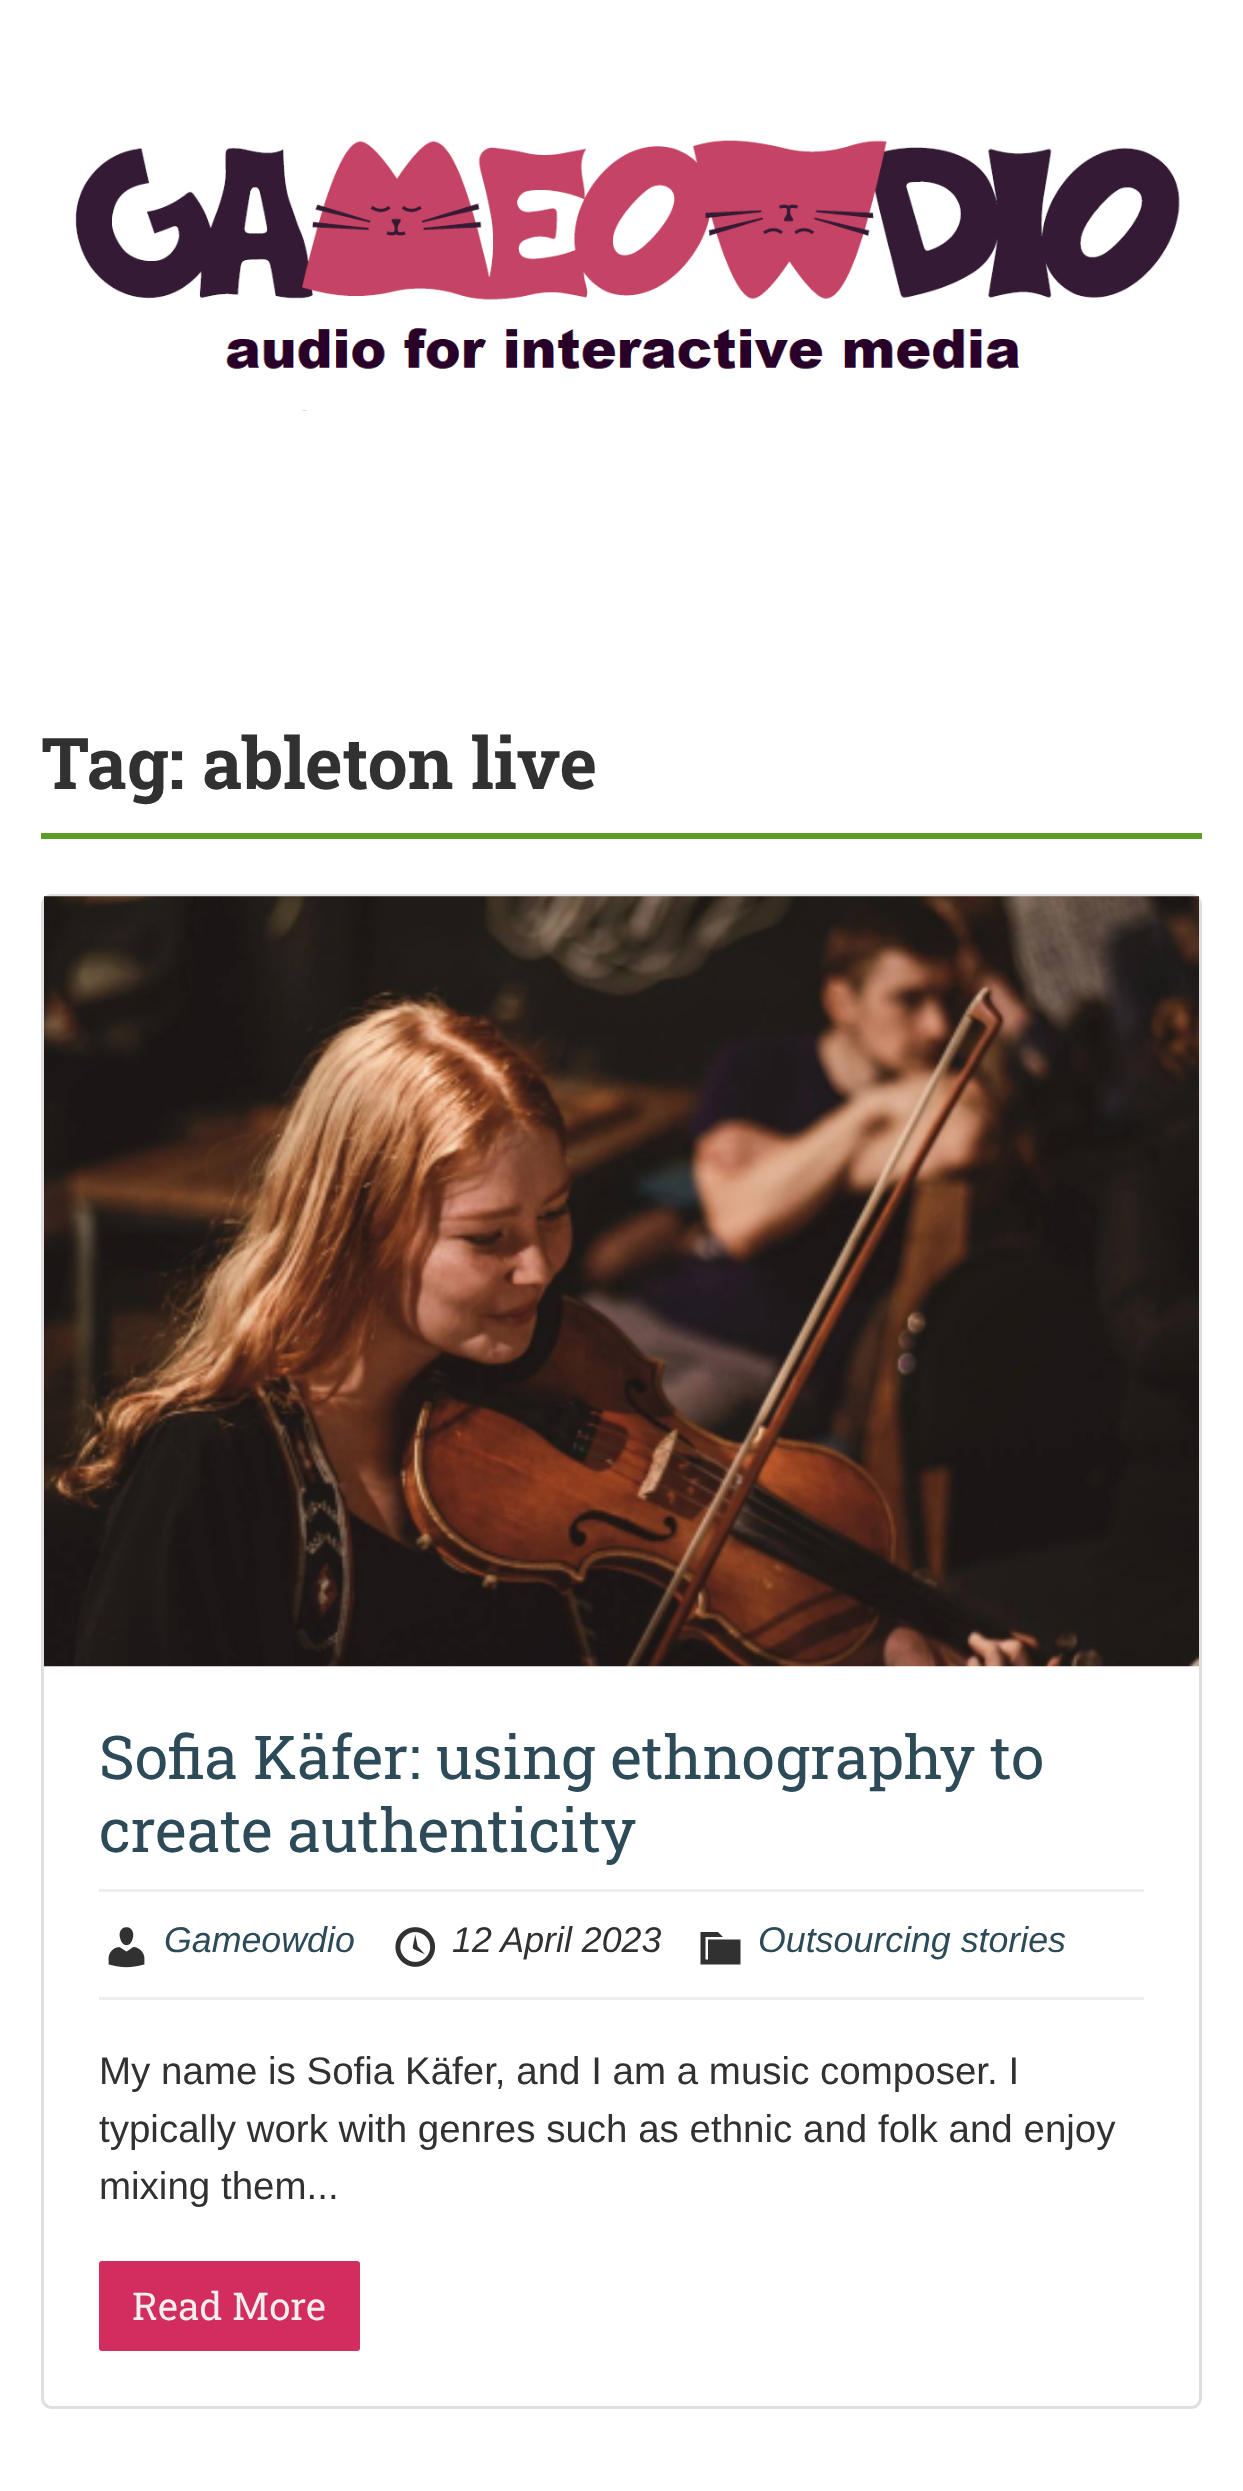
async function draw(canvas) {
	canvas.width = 1243;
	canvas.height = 2491;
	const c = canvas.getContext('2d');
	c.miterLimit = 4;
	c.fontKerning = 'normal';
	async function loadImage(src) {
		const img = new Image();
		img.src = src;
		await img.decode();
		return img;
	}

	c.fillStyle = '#fff';
	c.fillRect(0, 0, 1243, 2491);
	c.drawImage(await loadImage('img1.png'), 75, 140, 1105, 271);
	c.fillStyle = '#5a9e25';
	c.fillRect(41, 833, 1161, 6);
	c.font = 'bold 71.5px Roboto Slab';
	c.fillStyle = '#313131';
	c.fillText('Tag: ableton live', 41, 789);
	c.beginPath();
	c.roundRect(42.5, 895.5, 1158, 1512, 9.5);
	c.strokeStyle = '#dfdfdf';
	c.lineWidth = 3;
	c.stroke();
	c.drawImage(await loadImage('img2.png'), 44, 896, 1155, 771);
	c.font = '60.5px Roboto Slab';
	c.fillStyle = '#2c4a58';
	c.fillText('Sofia Käfer: using ethnography to', 99, 1779);
	c.fillText('create authenticity', 99, 1852);
	c.fillStyle = '#eee';
	c.fillRect(99, 1889, 1045, 3);
	c.fillRect(99, 1997, 1045, 3);
	c.drawImage(await loadImage('img3.png'), 108, 1927, 37, 41);
	c.font = 'italic 35.75px Liberation Sans';
	c.fillStyle = '#2c4a58';
	c.fillText('Gameowdio', 164, 1952);
	c.drawImage(await loadImage('img4.png'), 395, 1927, 41, 40);
	c.fillStyle = '#313131';
	c.fillText('12 April 2023', 452, 1952);
	c.beginPath();
	c.moveTo(708, 1939.5);
	c.lineTo(740.5, 1939.5);
	c.lineTo(740.5, 1964.5);
	c.lineTo(700.5, 1964.5);
	c.lineTo(700.5, 1932);
	c.lineTo(718, 1932);
	c.lineTo(723, 1937);
	c.lineTo(705.5, 1937);
	c.lineTo(705.5, 1959.5);
	c.lineTo(708, 1959.5);
	c.closePath();
	c.fill();
	c.fillStyle = '#2c4a58';
	c.fillText('Outsourcing stories', 758, 1952);
	c.font = '38.5px Liberation Sans';
	c.fillStyle = '#313131';
	for (const [text, x, y] of [
		['My name is Sofia Käfer, and I am a music composer. I', 99, 2084],
		['typically work with genres such as ethnic and folk and enjoy', 99, 2142],
		['mixing them...', 99, 2199],
	]) {
		c.fillText(text, x, y);
	}
	c.fillStyle = '#d32c5e';
	c.beginPath();
	c.roundRect(99, 2261, 261, 90, 3);
	c.fill();
	c.font = '38.5px Roboto Slab';
	c.fillStyle = '#efefef';
	c.fillText('Read More', 132, 2320);
}

draw(document.querySelector('canvas'));
